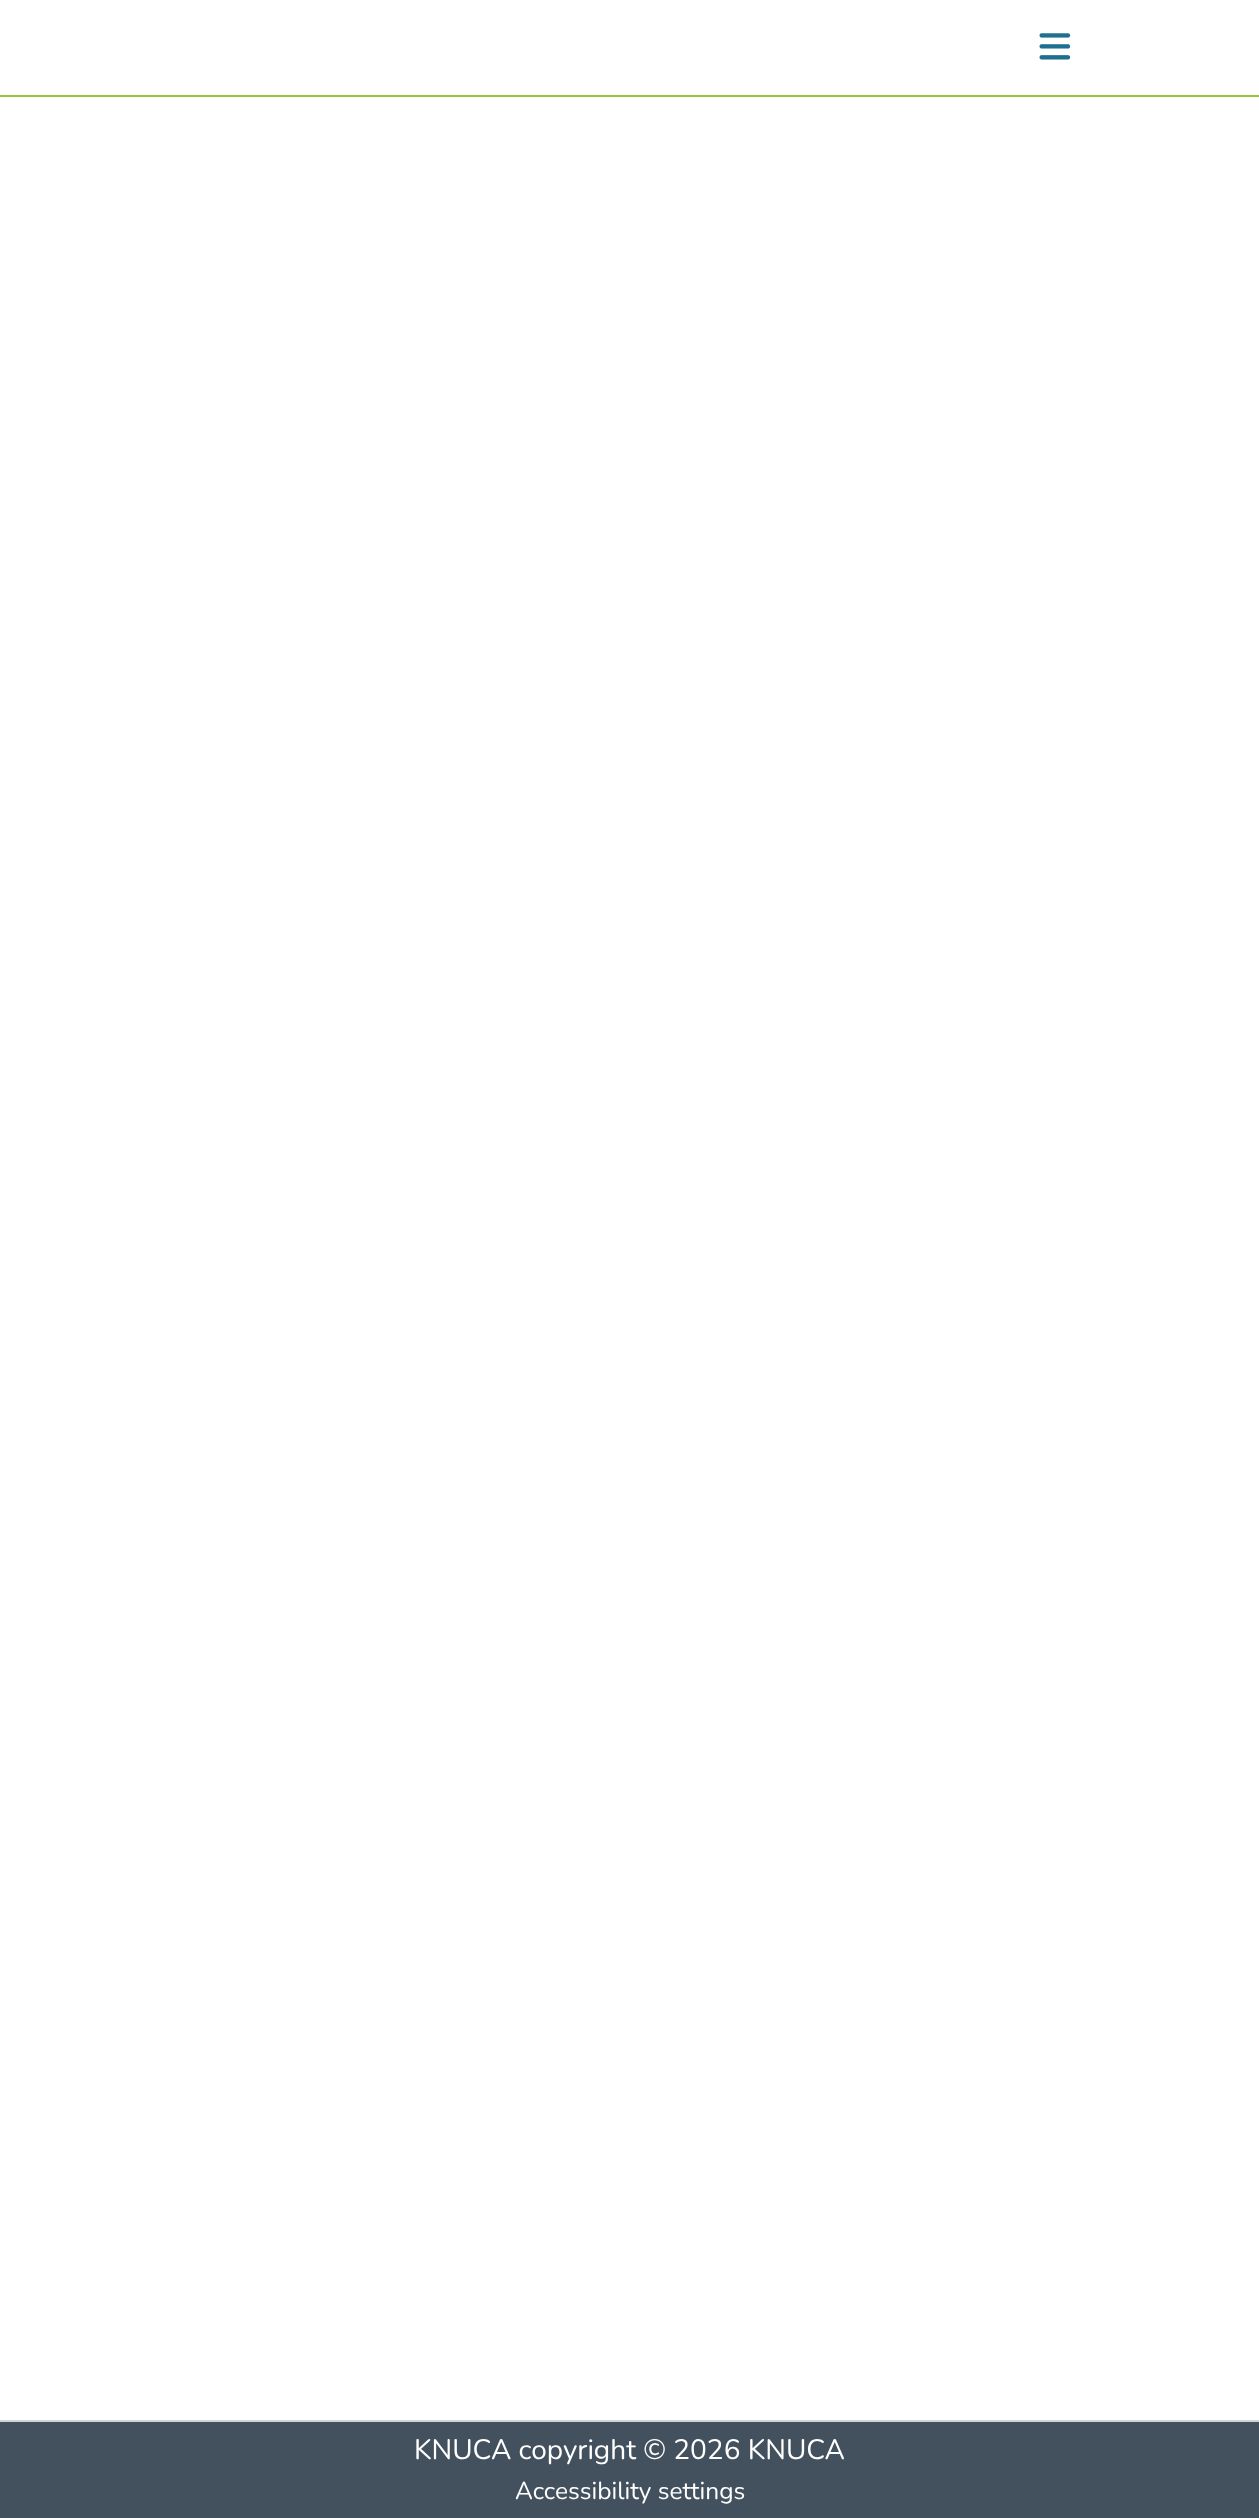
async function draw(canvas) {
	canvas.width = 1259;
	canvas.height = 2518;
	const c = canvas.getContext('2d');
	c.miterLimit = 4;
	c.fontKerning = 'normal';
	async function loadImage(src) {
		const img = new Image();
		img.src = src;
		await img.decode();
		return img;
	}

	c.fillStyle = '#fff';
	c.fillRect(0, 0, 1259, 2518);
	c.fillStyle = '#92c642';
	c.fillRect(0, 95, 1259, 2);
	c.drawImage(await loadImage('img1.png'), 1039, 33, 32, 27);
	c.fillStyle = '#43515f';
	c.fillRect(0, 2422, 1259, 96);
	c.fillStyle = '#ced4da';
	c.fillRect(0, 2420, 1259, 2);
	c.font = '28px Nunito';
	c.fillStyle = '#fff';
	c.fillText('KNUCA copyright © 2026 KNUCA', 414, 2459);
	c.font = '24.5px Nunito';
	c.fillText('Accessibility settings', 515, 2499);
}

draw(document.querySelector('canvas'));
